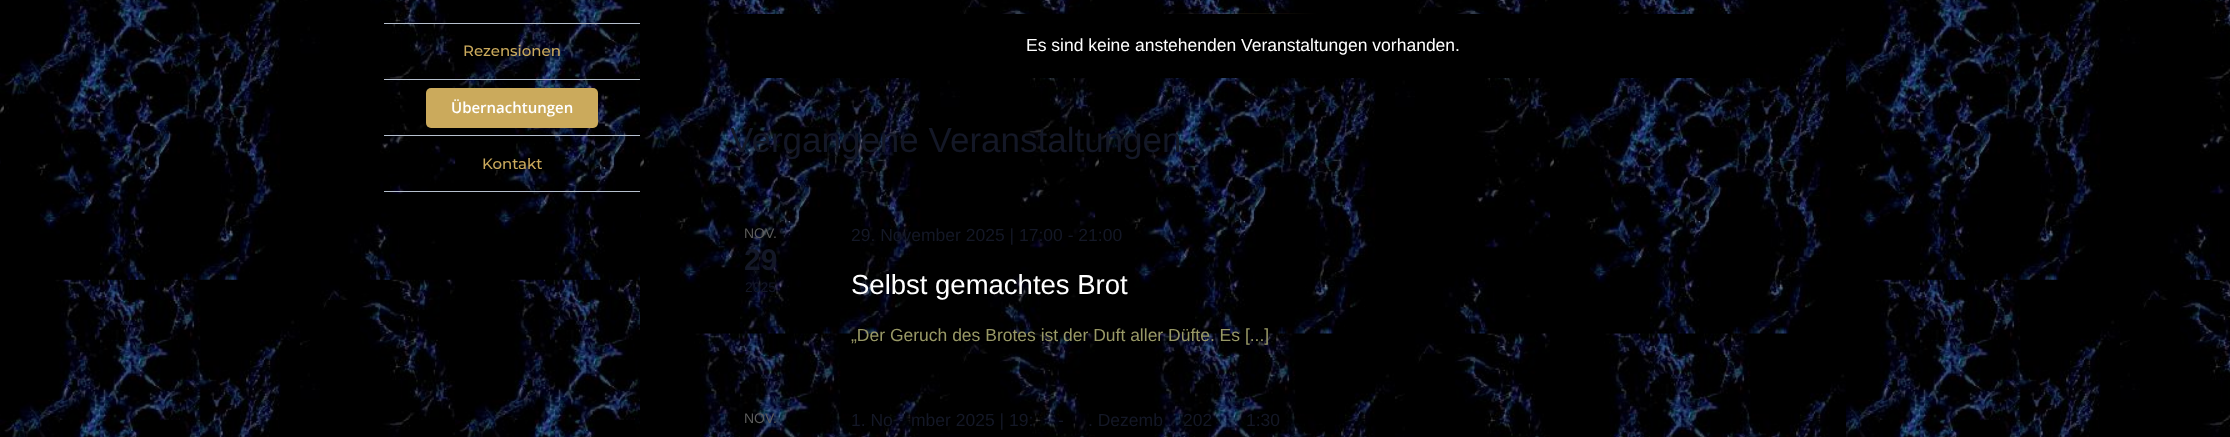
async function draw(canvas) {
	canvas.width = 2230;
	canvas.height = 437;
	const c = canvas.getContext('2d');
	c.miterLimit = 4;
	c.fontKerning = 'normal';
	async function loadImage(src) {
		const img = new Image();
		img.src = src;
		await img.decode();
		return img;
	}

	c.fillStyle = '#fff';
	c.fillRect(0, 0, 2230, 437);
	c.drawImage(await loadImage('img1.png'), 0, 0, 2230, 437);
	c.fillStyle = '#b6c0ce';
	c.fillRect(384, 23, 256, 1);
	c.fillRect(384, 79, 256, 1);
	c.font = '100 15px Montserrat';
	c.fillStyle = '#cbaa5c';
	c.fillText('Rezensionen', 463, 56);
	c.fillStyle = '#b6c0ce';
	c.fillRect(384, 135, 256, 1);
	c.fillStyle = '#cbaa5c';
	c.beginPath();
	c.roundRect(426, 88, 172, 40, 5);
	c.fill();
	c.font = '600 15px Open Sans';
	c.fillStyle = '#fff';
	c.fillText('Übernachtungen', 451, 113);
	c.fillStyle = '#b6c0ce';
	c.fillRect(384, 191, 256, 1);
	c.font = '100 15px Montserrat';
	c.fillStyle = '#cbaa5c';
	c.fillText('Kontakt', 482, 169);
	c.drawImage(await loadImage('img2.png'), 640, 0, 1206, 437);
	c.fillStyle = '#cbaa5c33';
	c.beginPath();
	c.ellipse(1243, 45.5, 513, 32, 0, 0, 2 * Math.PI);
	c.fill();
	c.fillStyle = '#000';
	c.fillRect(730, 14, 1026, 64);
	c.font = '17.5px Liberation Sans';
	c.fillStyle = '#fff';
	c.fillText('Es sind keine anstehenden Veranstaltungen vorhanden.', 1026, 51);
	c.font = '35px Liberation Sans';
	c.fillStyle = '#141827';
	c.fillText('Vergangene Veranstaltungen', 730, 152);
	c.font = '14px Liberation Sans';
	c.fillStyle = '#5d5d5d';
	c.fillText('NOV.', 744, 238);
	c.font = 'bold 30px Liberation Sans';
	c.fillStyle = '#141827';
	c.fillText('29', 744, 270);
	c.font = '14px Liberation Sans';
	c.fillText('2025', 745, 292);
	c.font = '17.5px Liberation Sans';
	c.fillText('29. November 2025 | 17:00 - 21:00', 851, 241);
	c.font = '27.5px Liberation Sans';
	c.fillStyle = '#fff';
	c.fillText('Selbst gemachtes Brot', 851, 294);
	c.font = '17.5px Liberation Sans';
	c.fillStyle = '#996';
	c.fillText('„Der Geruch des Brotes ist der Duft aller Düfte. Es [...]', 851, 341);
	c.font = '14px Liberation Sans';
	c.fillStyle = '#5d5d5d';
	c.fillText('NOV.', 744, 423);
	c.font = '17.5px Liberation Sans';
	c.fillStyle = '#141827';
	for (const [text, x, y] of [
		['1. No', 851, 426],
		['mber 2025 | 19:', 911, 426],
		['-', 1058, 426],
		['. Dezemb', 1088, 426],
		['202', 1183, 426],
		['1:30', 1246, 426],
	]) {
		c.fillText(text, x, y);
	}
}

draw(document.querySelector('canvas'));
